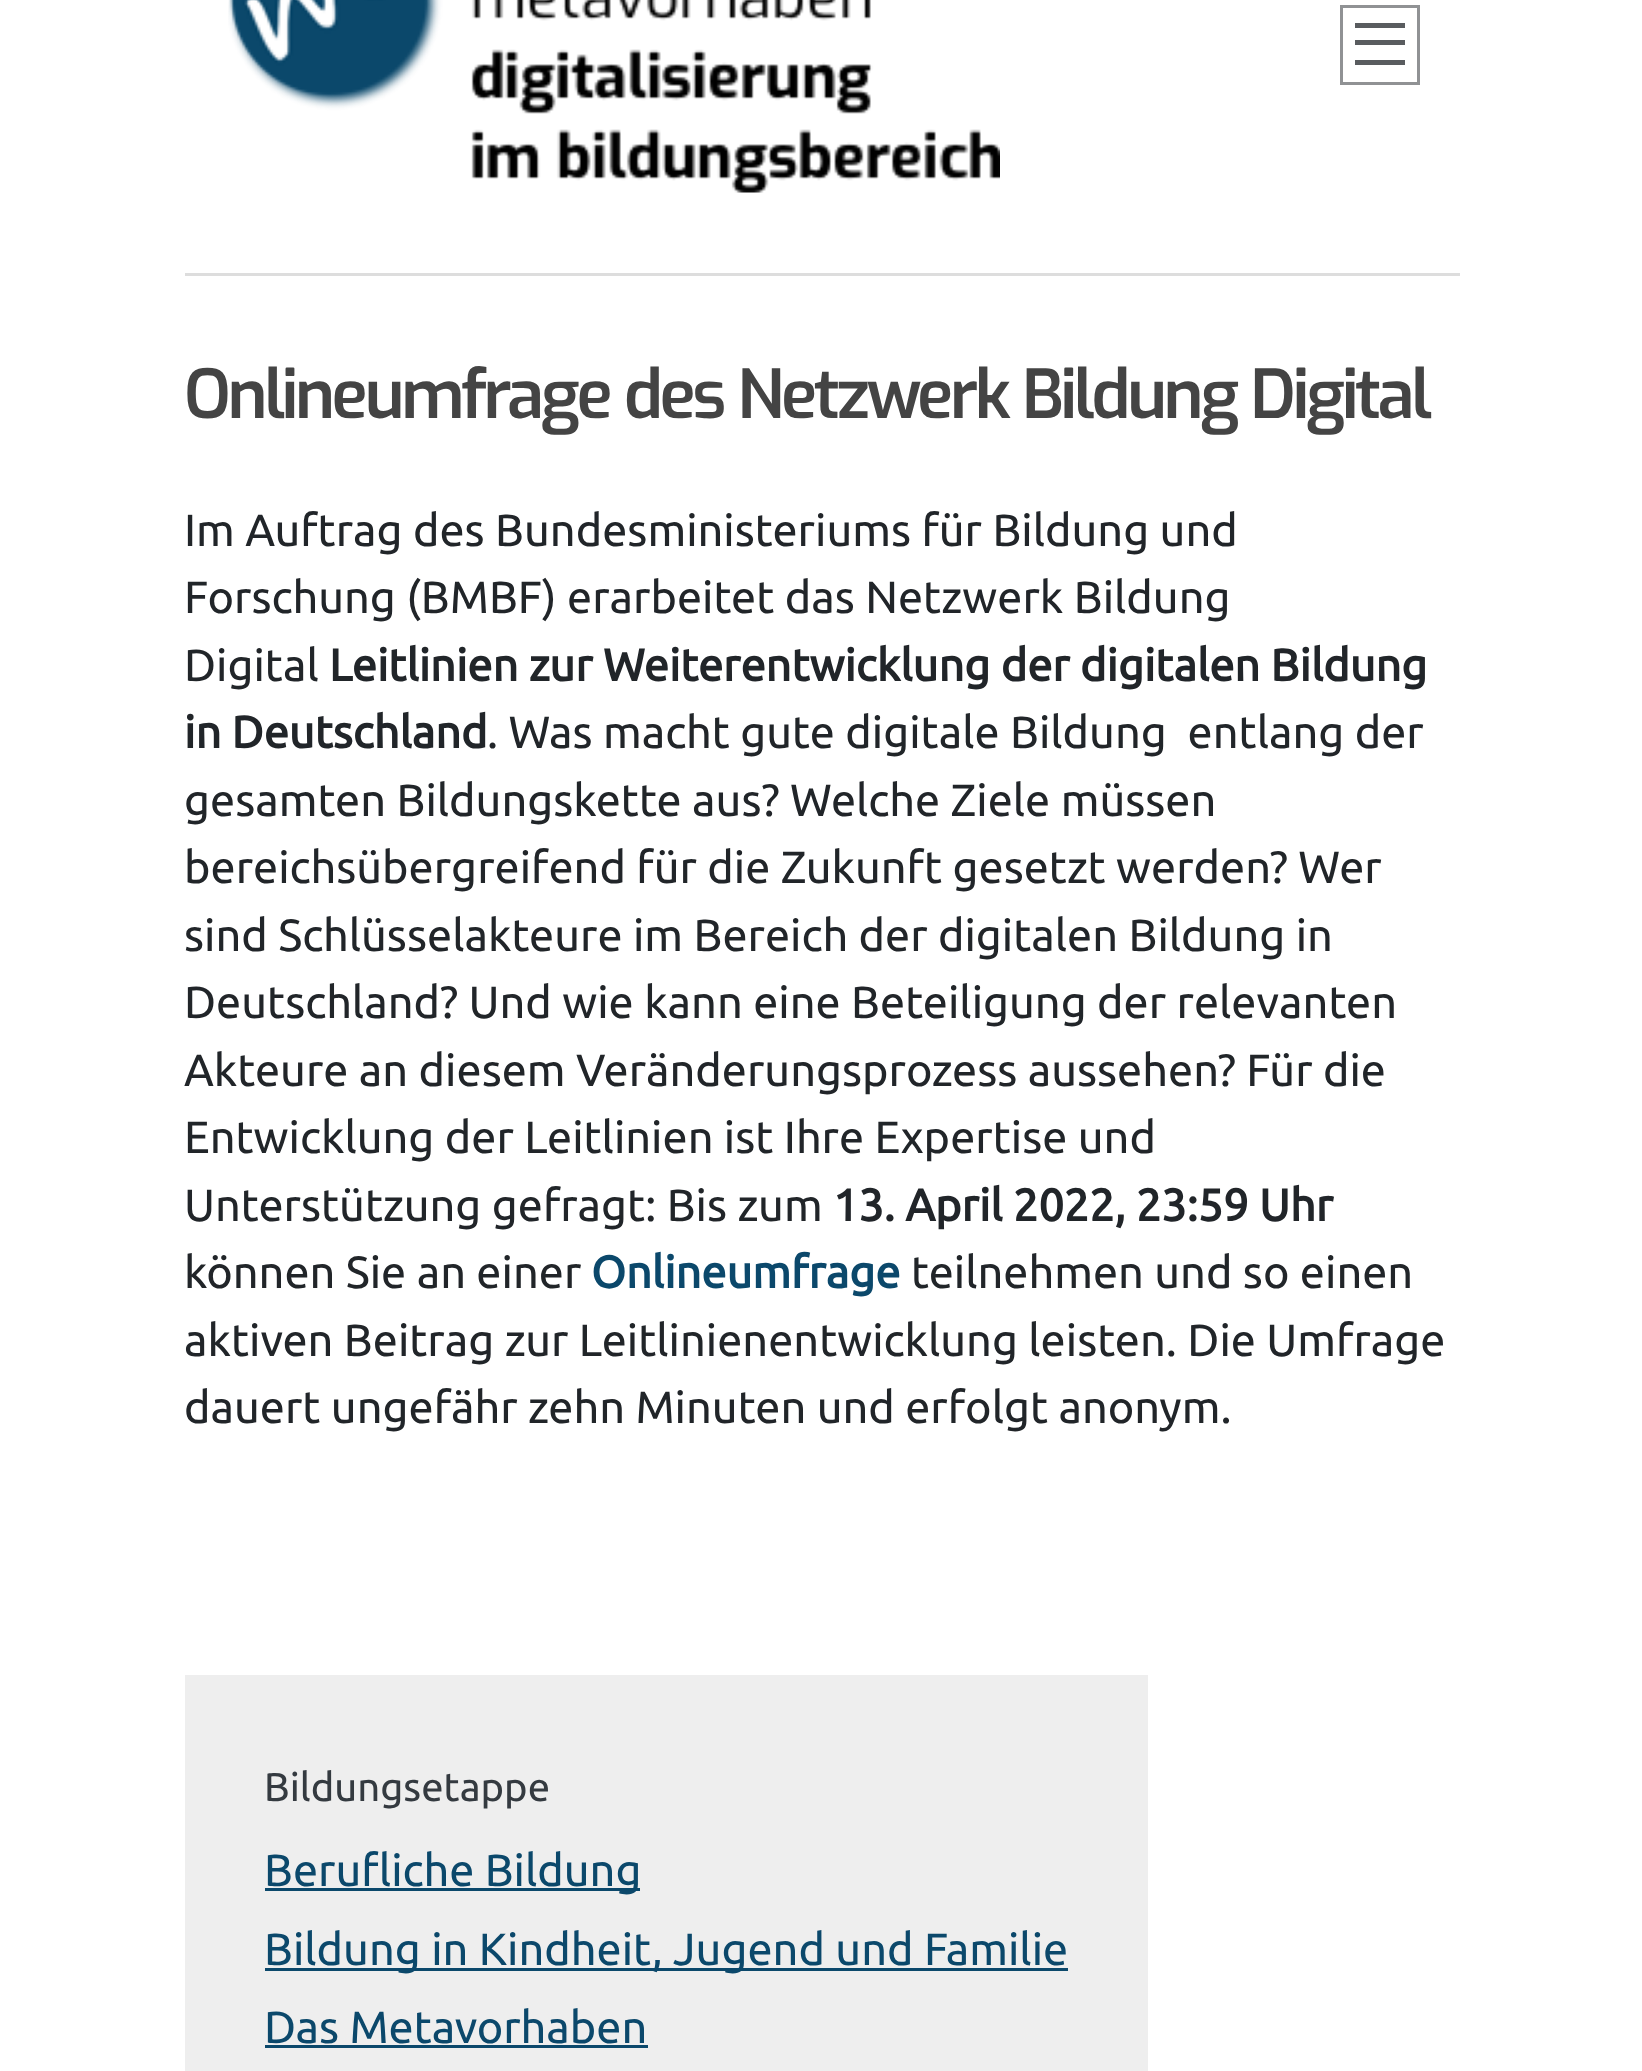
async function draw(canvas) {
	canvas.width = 1642;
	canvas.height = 2071;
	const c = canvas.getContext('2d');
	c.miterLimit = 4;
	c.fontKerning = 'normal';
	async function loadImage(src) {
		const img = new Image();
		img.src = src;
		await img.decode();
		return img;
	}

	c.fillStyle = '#fff';
	c.fillRect(0, 0, 1642, 2071);
	c.fillStyle = '#ddd';
	c.fillRect(185, 273, 1275, 3);
	c.drawImage(await loadImage('img1.png'), 228, 0, 772, 193);
	c.strokeStyle = '#909294';
	c.lineWidth = 3;
	c.strokeRect(1341.5, 6.5, 77, 77);
	for (const [x, y, w, h, color] of [
		[1355, 23, 50, 5, '#595c5f'],
		[1355, 40, 50, 5, '#595c5f'],
		[1355, 60, 50, 5, '#595c5f'],
	]) {
		c.fillStyle = color;
		c.fillRect(x, y, w, h);
	}
	c.letterSpacing = '-3.4px';
	c.font = '600 67.5px Exo';
	c.fillStyle = '#444';
	c.fillText('Onlineumfrage des Netzwerk Bildung Digital', 184, 418);
	c.letterSpacing = '0px';
	c.font = '45px Ubuntu';
	c.fillStyle = '#212529';
	for (const [text, x, y] of [
		['Im Auftrag des Bundesministeriums für Bildung und', 184, 546],
		['Forschung (BMBF) erarbeitet das Netzwerk Bildung', 184, 613],
		['Digital', 184, 681],
	]) {
		c.fillText(text, x, y);
	}
	c.font = 'bold 45px Ubuntu';
	c.fillText('Leitlinien zur Weiterentwicklung der digitalen Bildung', 329, 681);
	c.fillText('in Deutschland', 184, 748);
	c.font = '45px Ubuntu';
	for (const [text, x, y] of [
		['. Was macht gute digitale Bildung  entlang der', 487, 748],
		['gesamten Bildungskette aus? Welche Ziele müssen', 184, 816],
		['bereichsübergreifend für die Zukunft gesetzt werden? Wer', 184, 883],
		['sind Schlüsselakteure im Bereich der digitalen Bildung in', 184, 951],
		['Deutschland? Und wie kann eine Beteiligung der relevanten', 184, 1018],
		['Akteure an diesem Veränderungsprozess aussehen? Für die', 184, 1086],
		['Entwicklung der Leitlinien ist Ihre Expertise und', 184, 1153],
		['Unterstützung gefragt: Bis zum', 184, 1221],
	]) {
		c.fillText(text, x, y);
	}
	c.font = 'bold 45px Ubuntu';
	c.fillText('13. April 2022, 23:59 Uhr', 833, 1221);
	c.font = '45px Ubuntu';
	c.fillText('können Sie an einer', 184, 1288);
	c.font = 'bold 45px Ubuntu';
	c.fillStyle = '#0b486b';
	c.fillText('Onlineumfrage', 591, 1288);
	c.font = '45px Ubuntu';
	c.fillStyle = '#212529';
	for (const [text, x, y] of [
		['teilnehmen und so einen', 911, 1288],
		['aktiven Beitrag zur Leitlinienentwicklung leisten. Die Umfrage', 184, 1356],
		['dauert ungefähr zehn Minuten und erfolgt anonym.', 184, 1423],
	]) {
		c.fillText(text, x, y);
	}
	c.fillStyle = '#eee';
	c.fillRect(185, 1675, 963, 396);
	c.font = '40px Ubuntu';
	c.fillStyle = '#343a40';
	c.fillText('Bildungsetappe', 264, 1801);
	c.fillStyle = '#0b486b';
	c.fillRect(265, 1888, 375, 3);
	c.font = '45px Ubuntu';
	c.fillText('Berufliche Bildung', 264, 1886);
	c.fillRect(265, 1968, 803, 3);
	c.fillText('Bildung in Kindheit, Jugend und Familie', 264, 1965);
	c.fillText('Das Metavorhaben', 264, 2043);
	c.fillRect(265, 2045, 383, 3);
}

draw(document.querySelector('canvas'));
